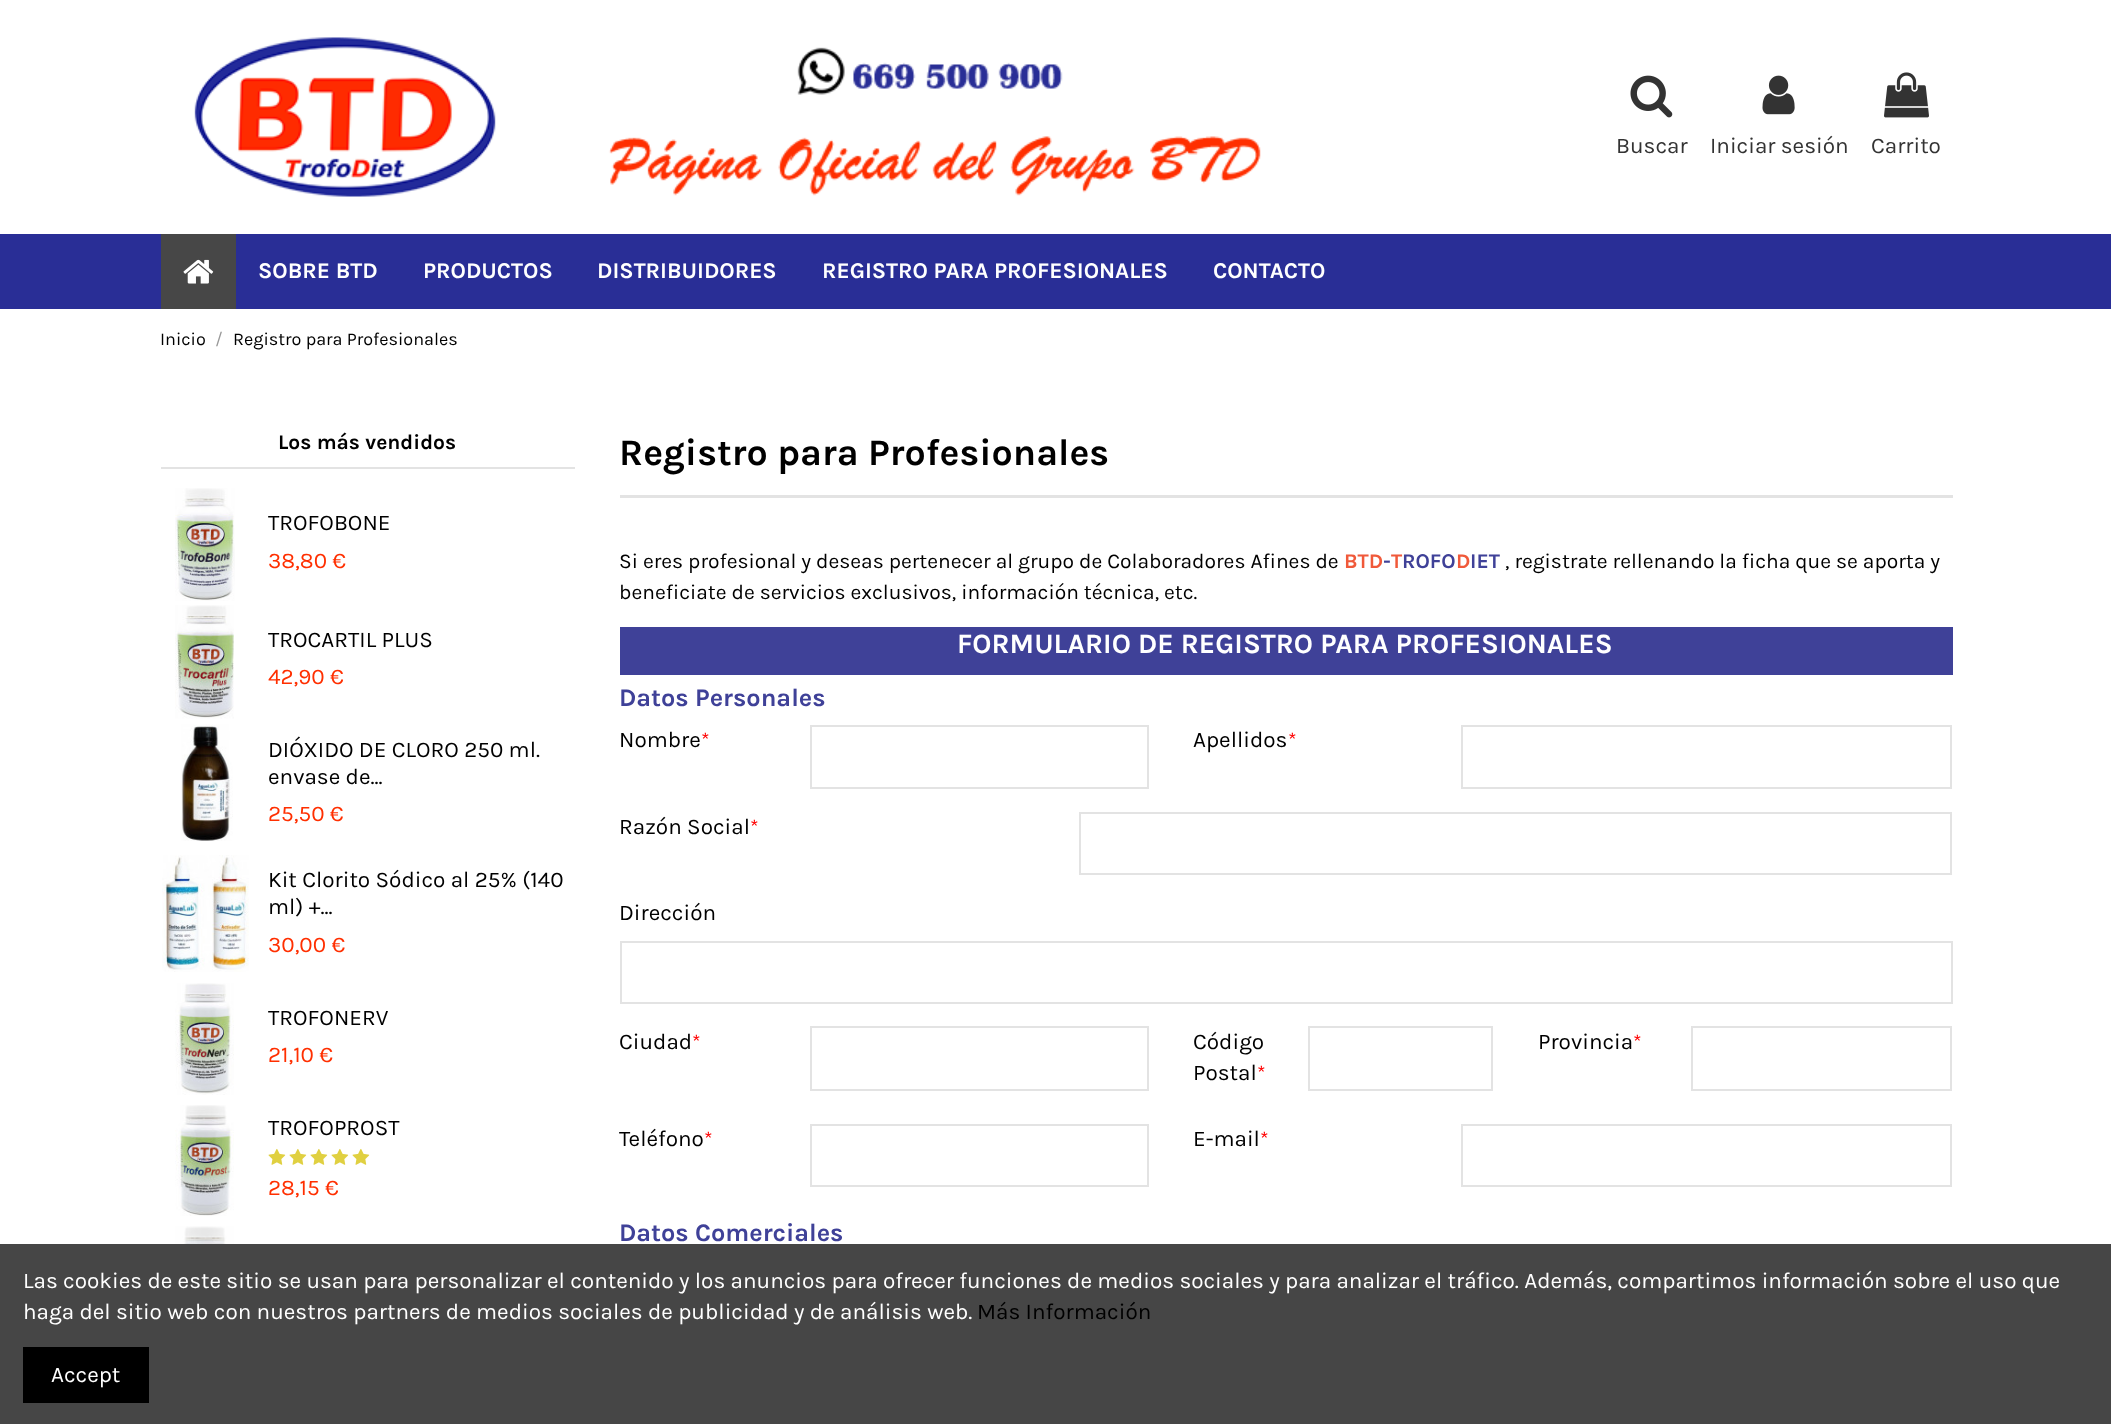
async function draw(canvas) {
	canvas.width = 2111;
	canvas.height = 1424;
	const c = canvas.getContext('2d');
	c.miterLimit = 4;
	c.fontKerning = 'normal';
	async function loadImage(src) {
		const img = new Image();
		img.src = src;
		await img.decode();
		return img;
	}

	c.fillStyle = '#fff';
	c.fillRect(0, 0, 2111, 1424);
	c.drawImage(await loadImage('img1.png'), 194, 37, 1067, 160);
	c.drawImage(await loadImage('img2.png'), 1630, 75, 43, 43);
	c.font = '22.5px Karla';
	c.fillStyle = '#333';
	c.fillText('Buscar', 1616, 153);
	c.drawImage(await loadImage('img3.png'), 1762, 75, 33, 40);
	c.fillText('Iniciar sesión', 1710, 153);
	c.drawImage(await loadImage('img4.png'), 1884, 72, 45, 46);
	c.fillText('Carrito', 1871, 153);
	c.fillStyle = '#292e96';
	c.fillRect(0, 234, 2111, 75);
	c.fillStyle = '#474747';
	c.fillRect(161, 234, 75, 75);
	c.drawImage(await loadImage('img5.png'), 183, 259, 31, 25);
	c.font = 'bold 22.5px Karla';
	c.fillStyle = '#fff';
	for (const [text, x, y] of [
		['SOBRE BTD', 258, 278],
		['PRODUCTOS', 423, 278],
		['DISTRIBUIDORES', 597, 278],
		['REGISTRO PARA PROFESIONALES', 822, 278],
		['CONTACTO', 1213, 278],
	]) {
		c.fillText(text, x, y);
	}
	c.font = '18px Karla';
	c.fillStyle = '#000';
	c.fillText('Inicio', 160, 345);
	c.fillStyle = '#999';
	c.fillText('/', 215, 345);
	c.fillStyle = '#000';
	c.fillText('Registro para Profesionales', 233, 345);
	c.fillStyle = '#e3e3e3';
	c.fillRect(161, 467, 414, 2);
	c.font = 'bold 21px Karla';
	c.fillStyle = '#000';
	c.fillText('Los más vendidos', 278, 449);
	c.drawImage(await loadImage('img6.png'), 175, 488, 60, 113);
	c.font = '22.5px Karla';
	c.fillText('TROFOBONE', 268, 530);
	c.fillStyle = '#ff2f00';
	c.fillText('38,80 €', 268, 568);
	c.drawImage(await loadImage('img7.png'), 175, 605, 59, 114);
	c.fillStyle = '#000';
	c.fillText('TROCARTIL PLUS', 268, 647);
	c.fillStyle = '#ff2f00';
	c.fillText('42,90 €', 268, 684);
	c.drawImage(await loadImage('img8.png'), 181, 724, 52, 117);
	c.fillStyle = '#000';
	c.fillText('DIÓXIDO DE CLORO 250 ml.', 268, 757);
	c.fillText('envase de...', 268, 784);
	c.fillStyle = '#ff2f00';
	c.fillText('25,50 €', 268, 821);
	c.drawImage(await loadImage('img9.png'), 162, 855, 87, 117);
	c.fillStyle = '#000';
	c.fillText('Kit Clorito Sódico al 25% (140', 268, 887);
	c.fillText('ml) +...', 268, 914);
	c.fillStyle = '#ff2f00';
	c.fillText('30,00 €', 268, 952);
	c.drawImage(await loadImage('img10.png'), 175, 983, 59, 112);
	c.fillStyle = '#000';
	c.fillText('TROFONERV', 268, 1025);
	c.fillStyle = '#ff2f00';
	c.fillText('21,10 €', 268, 1062);
	c.drawImage(await loadImage('img11.png'), 175, 1105, 59, 111);
	c.fillStyle = '#000';
	c.fillText('TROFOPROST', 268, 1135);
	c.drawImage(await loadImage('img12.png'), 268, 1148, 18, 17);
	c.drawImage(await loadImage('img12.png'), 289, 1148, 18, 17);
	c.drawImage(await loadImage('img12.png'), 310, 1148, 18, 17);
	c.drawImage(await loadImage('img12.png'), 331, 1148, 18, 17);
	c.drawImage(await loadImage('img12.png'), 352, 1148, 18, 17);
	c.fillStyle = '#ff2f00';
	c.fillText('28,15 €', 268, 1195);
	c.drawImage(await loadImage('img13.png'), 175, 1226, 59, 18);
	c.fillStyle = '#e3e3e3';
	c.fillRect(620, 495, 1333, 3);
	c.font = 'bold 37.5px Karla';
	c.fillStyle = '#000';
	c.fillText('Registro para Profesionales', 619, 465);
	c.font = '21px Karla';
	c.fillText('Si eres profesional y deseas pertenecer al grupo de Colaboradores Afines de', 619, 568);
	c.font = 'bold 21px Karla';
	c.fillStyle = '#f0593a';
	c.fillText('BTD', 1344, 568);
	c.fillStyle = '#3f4198';
	c.fillText('-', 1383, 568);
	c.fillStyle = '#f0593a';
	c.fillText('T', 1391, 568);
	c.fillStyle = '#3f4198';
	c.fillText('ROFO', 1402, 568);
	c.fillStyle = '#f0593a';
	c.fillText('D', 1456, 568);
	c.fillStyle = '#3f4198';
	c.fillText('IET', 1470, 568);
	c.font = '21px Karla';
	c.fillStyle = '#000';
	c.fillText(', registrate rellenando la ficha que se aporta y', 1505, 568);
	c.fillText('beneficiate de servicios exclusivos, información técnica, etc.', 619, 599);
	c.fillStyle = '#3f4198';
	c.fillRect(620, 627, 1333, 48);
	c.font = 'bold 28.1px Karla';
	c.fillStyle = '#fff';
	c.fillText('FORMULARIO DE REGISTRO PARA PROFESIONALES', 957, 653);
	c.font = 'bold 25.25px Karla';
	c.fillStyle = '#3f4198';
	c.fillText('Datos Personales', 619, 706);
	c.font = '22.5px Karla';
	c.fillStyle = '#000';
	c.fillText('Nombre', 619, 747);
	c.font = '21px Karla';
	c.fillStyle = '#f00';
	c.fillText('*', 701, 747);
	c.strokeStyle = '#e3e3e3';
	c.lineWidth = 2;
	c.strokeRect(811, 726, 337, 62);
	c.font = '22.5px Karla';
	c.fillStyle = '#000';
	c.fillText('Apellidos', 1193, 747);
	c.font = '21px Karla';
	c.fillStyle = '#f00';
	c.fillText('*', 1288, 747);
	c.strokeRect(1462, 726, 489, 62);
	c.font = '22.5px Karla';
	c.fillStyle = '#000';
	c.fillText('Razón Social', 619, 834);
	c.font = '21px Karla';
	c.fillStyle = '#f00';
	c.fillText('*', 750, 834);
	c.strokeRect(1080, 813, 871, 61);
	c.font = '22.5px Karla';
	c.fillStyle = '#000';
	c.fillText('Dirección', 619, 920);
	c.strokeRect(621, 942, 1331, 61);
	c.fillText('Ciudad', 619, 1049);
	c.font = '21px Karla';
	c.fillStyle = '#f00';
	c.fillText('*', 692, 1049);
	c.strokeRect(811, 1027, 337, 63);
	c.font = '22.5px Karla';
	c.fillStyle = '#000';
	c.fillText('Código', 1193, 1049);
	c.fillText('Postal', 1193, 1080);
	c.font = '21px Karla';
	c.fillStyle = '#f00';
	c.fillText('*', 1257, 1080);
	c.strokeRect(1309, 1027, 183, 63);
	c.font = '22.5px Karla';
	c.fillStyle = '#000';
	c.fillText('Provincia', 1538, 1049);
	c.font = '21px Karla';
	c.fillStyle = '#f00';
	c.fillText('*', 1633, 1049);
	c.strokeRect(1692, 1027, 259, 63);
	c.font = '22.5px Karla';
	c.fillStyle = '#000';
	c.fillText('Teléfono', 619, 1146);
	c.font = '21px Karla';
	c.fillStyle = '#f00';
	c.fillText('*', 704, 1146);
	c.strokeRect(811, 1125, 337, 61);
	c.font = '22.5px Karla';
	c.fillStyle = '#000';
	c.fillText('E-mail', 1193, 1146);
	c.font = '21px Karla';
	c.fillStyle = '#f00';
	c.fillText('*', 1260, 1146);
	c.strokeRect(1462, 1125, 489, 61);
	c.font = 'bold 25.25px Karla';
	c.fillStyle = '#3f4198';
	c.fillText('Datos Comerciales', 619, 1241);
	c.fillStyle = '#464646';
	c.fillRect(0, 1244, 2111, 180);
	c.font = '22.5px Karla';
	c.fillStyle = '#fff';
	c.fillText('Las cookies de este sitio se usan para personalizar el contenido y los anuncios para ofrecer funciones de medios sociales y para analizar el tráfico. Además, compartimos información sobre el uso que', 23, 1288);
	c.fillText('haga del sitio web con nuestros partners de medios sociales de publicidad y de análisis web.', 23, 1319);
	c.fillStyle = '#000';
	c.fillText('Más Información', 977, 1319);
	c.fillRect(23, 1347, 126, 56);
	c.fillStyle = '#fff';
	c.fillText('Accept', 51, 1382);
}

draw(document.querySelector('canvas'));
